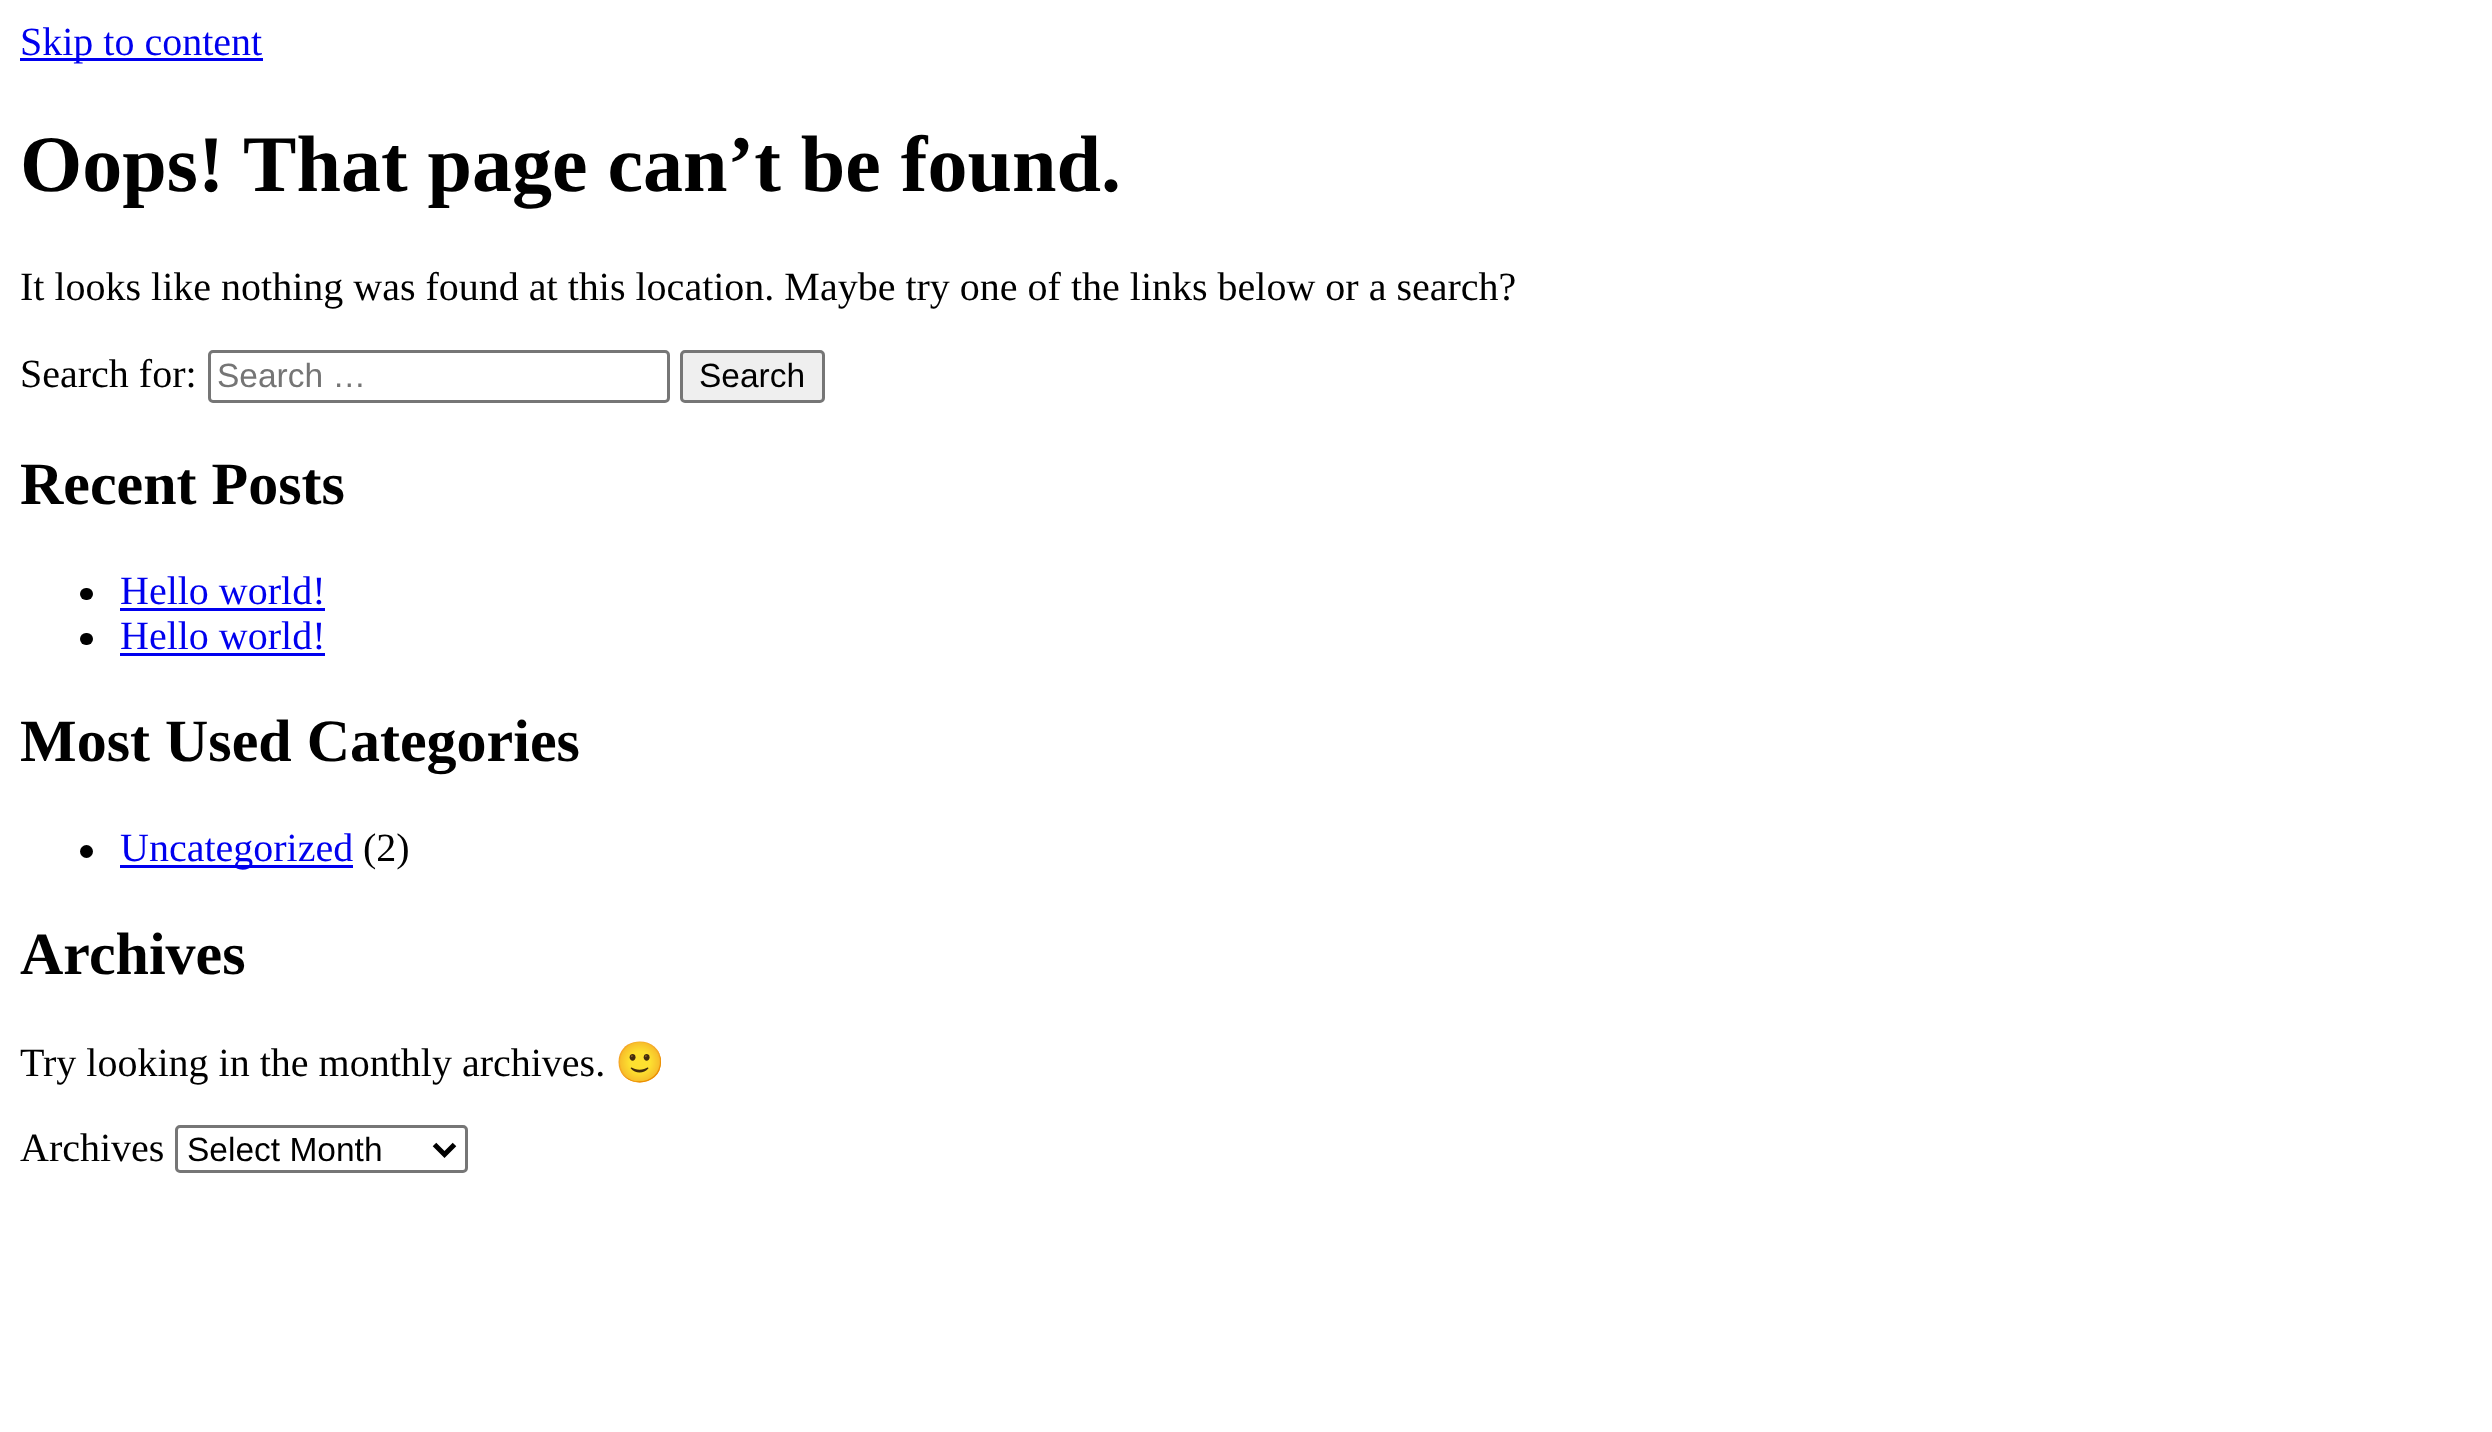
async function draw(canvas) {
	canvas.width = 2492;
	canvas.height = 1432;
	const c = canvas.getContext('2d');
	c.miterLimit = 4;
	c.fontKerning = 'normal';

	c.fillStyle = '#fff';
	c.fillRect(0, 0, 2492, 1432);
	c.fillStyle = '#00e';
	c.fillRect(20, 58, 243, 3);
	c.font = '40px Liberation Serif';
	c.fillText('Skip to content', 20, 55);
	c.font = 'bold 80px Liberation Serif';
	c.fillStyle = '#000';
	c.fillText('Oops! That page can’t be found.', 20, 191);
	c.font = '40px Liberation Serif';
	c.fillText('It looks like nothing was found at this location. Maybe try one of the links below or a search?', 20, 300);
	c.fillText('Search for:', 20, 387);
	c.beginPath();
	c.roundRect(209.5, 351.5, 459, 50, 3.5);
	c.strokeStyle = '#767676';
	c.lineWidth = 3;
	c.stroke();
	c.font = '33.5px Liberation Sans';
	c.fillStyle = '#757575';
	c.fillText('Search …', 217, 387);
	c.fillStyle = '#efefef';
	c.beginPath();
	c.roundRect(681.5, 351.5, 142, 50, 3.5);
	c.fill();
	c.stroke();
	c.fillStyle = '#000';
	c.fillText('Search', 699, 387);
	c.font = 'bold 60px Liberation Serif';
	c.fillText('Recent Posts', 20, 504);
	c.beginPath();
	c.roundRect(80, 588, 13, 12, 6);
	c.fill();
	c.font = '40px Liberation Serif';
	c.fillStyle = '#00e';
	c.fillText('Hello world!', 120, 604);
	c.fillRect(120, 608, 205, 3);
	c.fillStyle = '#000';
	c.beginPath();
	c.roundRect(80, 633, 13, 12, 6);
	c.fill();
	c.fillStyle = '#00e';
	c.fillText('Hello world!', 120, 649);
	c.fillRect(120, 653, 205, 3);
	c.font = 'bold 60px Liberation Serif';
	c.fillStyle = '#000';
	c.fillText('Most Used Categories', 20, 761);
	c.beginPath();
	c.arc(86.5, 851.5, 6.5, 0, 2 * Math.PI);
	c.fill();
	c.fillStyle = '#00e';
	c.fillRect(120, 865, 233, 3);
	c.font = '40px Liberation Serif';
	c.fillText('Uncategorized', 120, 861);
	c.fillStyle = '#000';
	c.fillText('(2)', 363, 861);
	c.font = 'bold 60px Liberation Serif';
	c.fillText('Archives', 20, 974);
	c.font = '40px Liberation Serif';
	c.fillText('Try looking in the monthly archives.', 20, 1076);
	c.font = '40px Noto Color Emoji';
	c.fillText('🙂', 615, 1076);
	c.font = '40px Liberation Serif';
	c.fillText('Archives', 20, 1161);
	c.beginPath();
	c.roundRect(176.5, 1126.5, 290, 45, 3.5);
	c.stroke();
	c.beginPath();
	c.moveTo(434.5, 1144.5);
	c.lineTo(444.5, 1154.5);
	c.lineTo(454.5, 1144.5);
	c.strokeStyle = '#000';
	c.lineWidth = 5;
	c.stroke();
	c.font = '33.5px Liberation Sans';
	c.fillText('Select Month', 187, 1161);
}

draw(document.querySelector('canvas'));
